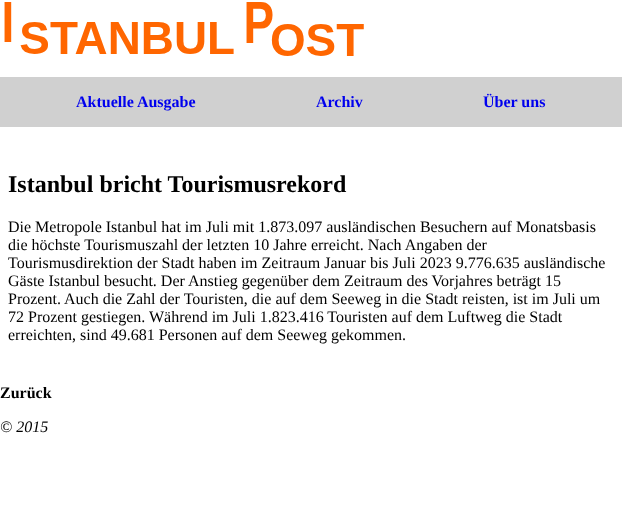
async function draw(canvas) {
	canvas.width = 622;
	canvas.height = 511;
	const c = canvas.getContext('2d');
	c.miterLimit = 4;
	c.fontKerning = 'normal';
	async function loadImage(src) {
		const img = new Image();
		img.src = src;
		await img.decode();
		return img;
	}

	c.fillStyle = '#fff';
	c.fillRect(0, 0, 622, 511);
	c.drawImage(await loadImage('img1.png'), 4, 2, 360, 54);
	c.fillStyle = '#d0d0d0';
	c.fillRect(0, 77, 622, 50);
	c.font = 'bold 16px Liberation Serif';
	c.fillStyle = '#00e';
	for (const [text, x, y] of [
		['Aktuelle Ausgabe', 76, 107],
		['Archiv', 316, 107],
		['Über uns', 483, 107],
	]) {
		c.fillText(text, x, y);
	}
	c.font = 'bold 24px Liberation Serif';
	c.fillStyle = '#000';
	c.fillText('Istanbul bricht Tourismusrekord', 8, 192);
	c.font = '16px Liberation Serif';
	for (const [text, x, y] of [
		['Die Metropole Istanbul hat im Juli mit 1.873.097 ausländischen Besuchern auf Monatsbasis', 8, 232],
		['die höchste Tourismuszahl der letzten 10 Jahre erreicht. Nach Angaben der', 8, 250],
		['Tourismusdirektion der Stadt haben im Zeitraum Januar bis Juli 2023 9.776.635 ausländische', 8, 268],
		['Gäste Istanbul besucht. Der Anstieg gegenüber dem Zeitraum des Vorjahres beträgt 15', 8, 286],
		['Prozent. Auch die Zahl der Touristen, die auf dem Seeweg in die Stadt reisten, ist im Juli um', 8, 304],
		['72 Prozent gestiegen. Während im Juli 1.823.416 Touristen auf dem Luftweg die Stadt', 8, 322],
		['erreichten, sind 49.681 Personen auf dem Seeweg gekommen.', 8, 340],
	]) {
		c.fillText(text, x, y);
	}
	c.font = 'bold 16px Liberation Serif';
	c.fillText('Zurück', 0, 398);
	c.font = 'italic 16px Liberation Serif';
	c.fillText('© 2015', 0, 432);
}

draw(document.querySelector('canvas'));
